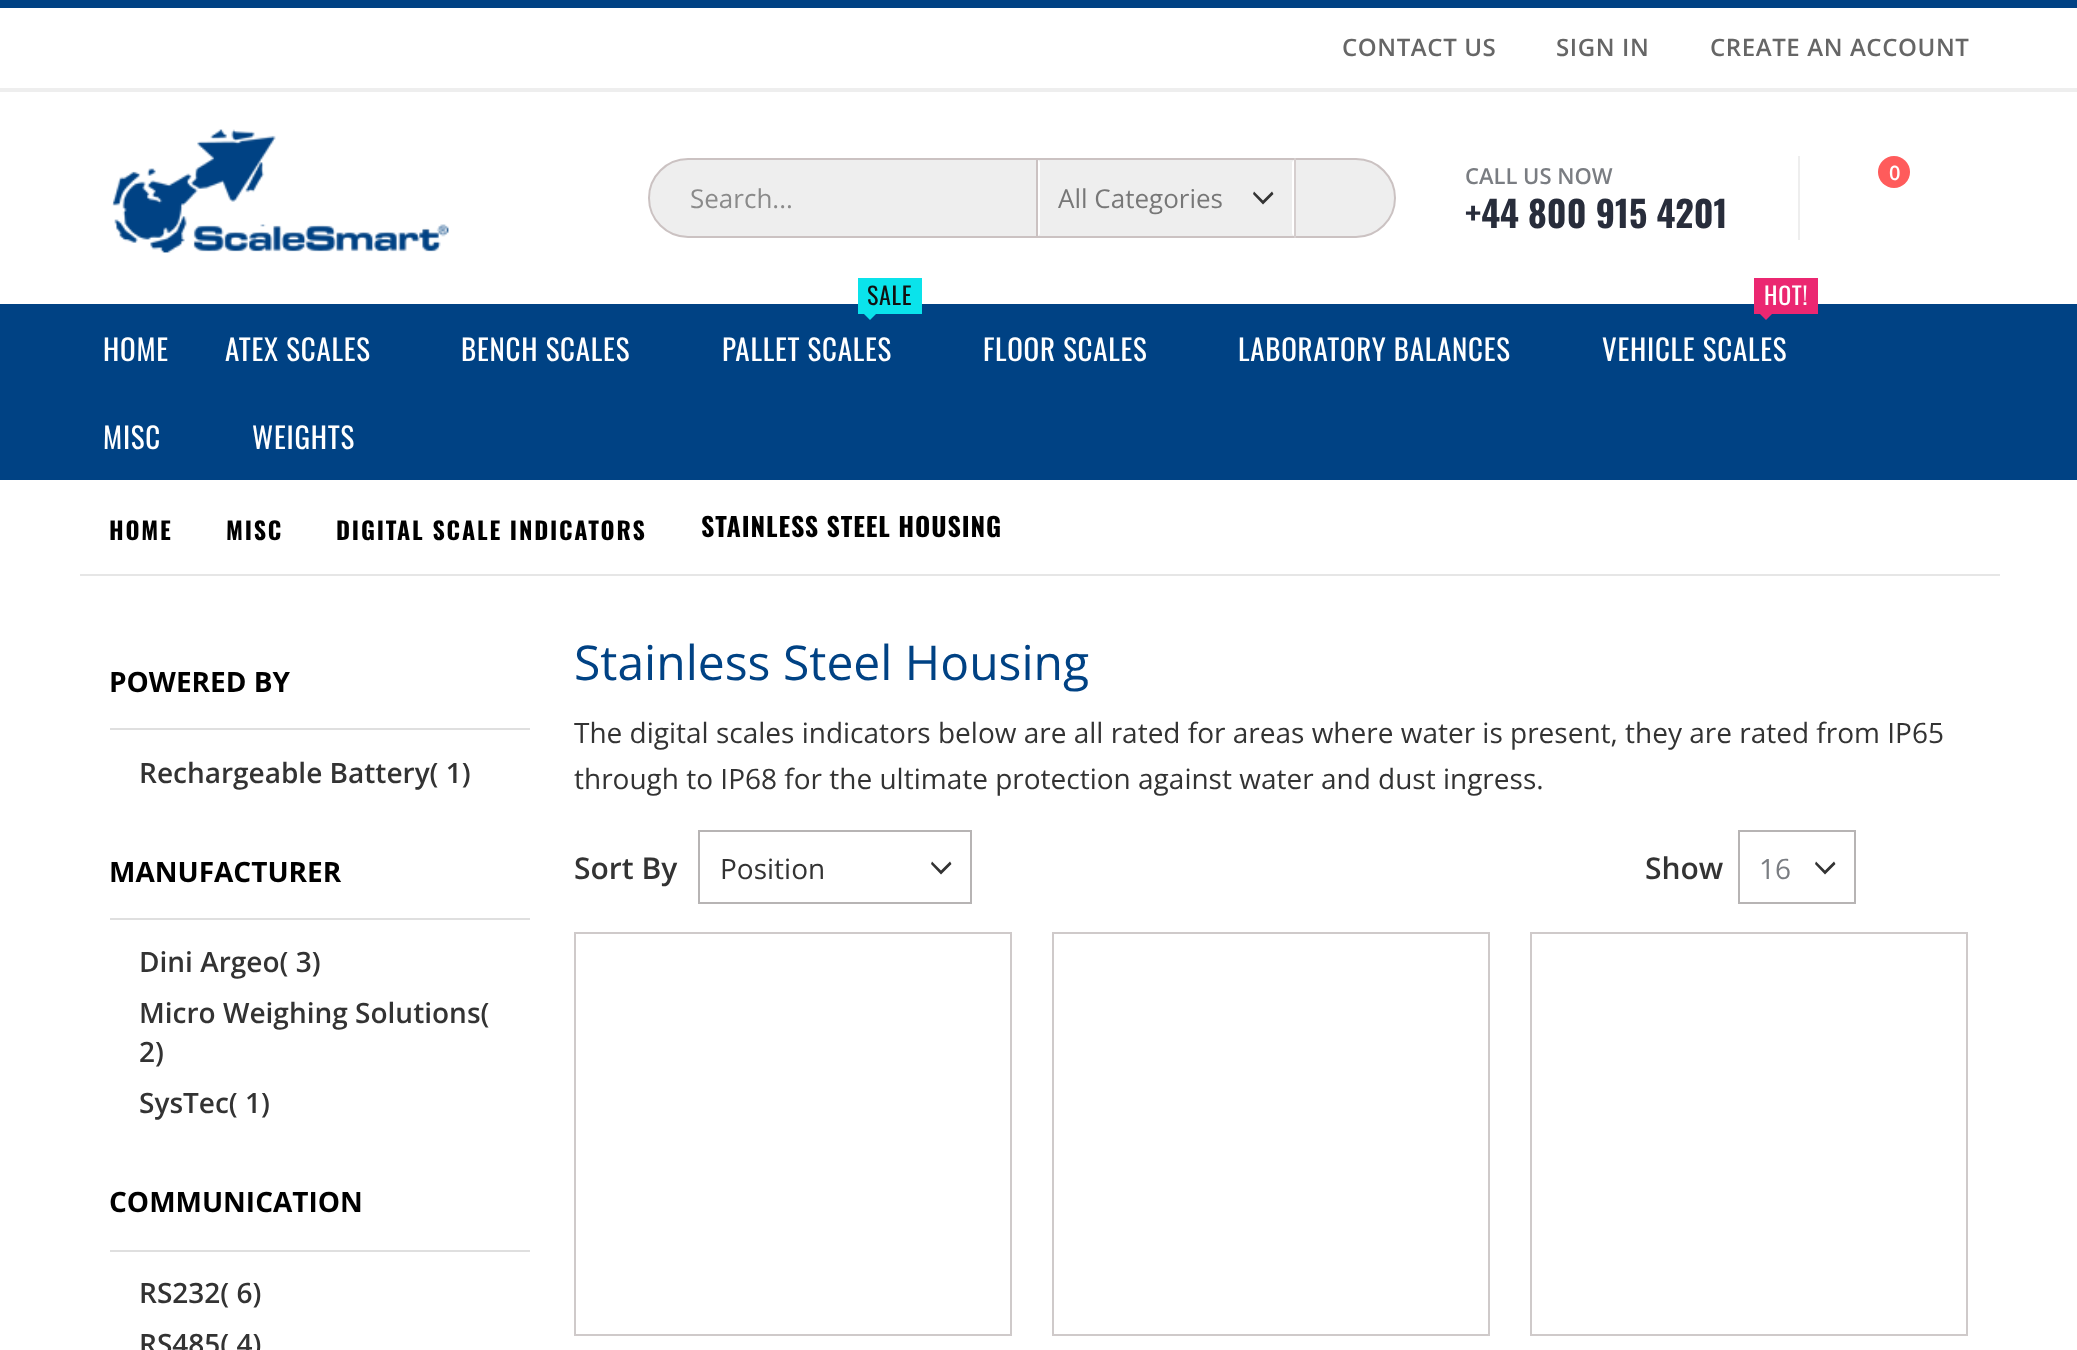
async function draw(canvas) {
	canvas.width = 2077;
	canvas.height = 1350;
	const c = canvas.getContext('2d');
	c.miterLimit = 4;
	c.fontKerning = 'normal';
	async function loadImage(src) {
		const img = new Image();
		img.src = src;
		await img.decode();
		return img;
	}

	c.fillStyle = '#fff';
	c.fillRect(0, 0, 2077, 1350);
	c.fillStyle = '#004284';
	c.fillRect(0, 0, 2077, 8);
	c.fillStyle = '#eee';
	c.fillRect(0, 88, 2077, 4);
	c.letterSpacing = '0.6px';
	c.font = '600 24px Open Sans';
	c.fillStyle = '#666';
	for (const [text, x, y] of [
		['CONTACT US', 1342, 56],
		['SIGN IN', 1556, 56],
		['CREATE AN ACCOUNT', 1710, 56],
	]) {
		c.fillText(text, x, y);
	}
	c.drawImage(await loadImage('img1.png'), 112, 129, 337, 124);
	c.fillStyle = '#eee';
	c.beginPath();
	c.roundRect(649, 159, 746, 78, 39);
	c.fill();
	c.strokeStyle = '#cbc2c2';
	c.lineWidth = 2;
	c.stroke();
	c.letterSpacing = '0px';
	c.font = '26px Open Sans';
	c.fillStyle = '#8a8a8a';
	c.fillText('Search...', 690, 208);
	c.strokeRect(1037, 159, 258, 78);
	c.fillStyle = '#333';
	c.beginPath();
	c.moveTo(1263.5, 204);
	c.lineTo(1273.5, 194);
	c.lineTo(1272, 191.5);
	c.lineTo(1263, 200.5);
	c.lineTo(1254, 191.5);
	c.lineTo(1253, 194);
	c.lineTo(1263, 204.5);
	c.closePath();
	c.fill('evenodd');
	c.fillStyle = '#fff';
	c.beginPath();
	c.moveTo(1294, 160);
	c.lineTo(1294, 236);
	c.lineTo(1292, 234);
	c.lineTo(1292, 162);
	c.closePath();
	c.fill();
	c.beginPath();
	c.moveTo(1038, 236);
	c.lineTo(1038, 160);
	c.lineTo(1040, 162);
	c.lineTo(1040, 234);
	c.closePath();
	c.fill();
	c.fillStyle = '#777';
	c.fillText('All Categories', 1058, 208);
	c.fillStyle = '#d5cece';
	c.fillRect(1294, 158, 2, 80);
	c.fillStyle = '#eee';
	c.fillRect(1798, 156, 2, 84);
	c.font = '600 22px Open Sans';
	c.fillStyle = '#7a7d82';
	c.fillText('CALL US NOW', 1465, 184);
	c.font = 'bold 36px Oswald';
	c.fillStyle = '#282d3b';
	c.fillText('+44 800 915 4201', 1465, 228);
	c.fillStyle = '#ff5b5b';
	c.beginPath();
	c.arc(1894, 172, 16, 0, 2 * Math.PI);
	c.fill();
	c.font = '600 20px Open Sans';
	c.fillStyle = '#fff';
	c.fillText('0', 1889, 180);
	c.fillStyle = '#004284';
	c.fillRect(0, 304, 2077, 176);
	c.letterSpacing = '0.75px';
	c.font = '29px Oswald';
	c.fillStyle = '#fff';
	for (const [text, x, y] of [
		['HOME', 103, 361],
		['ATEX SCALES', 225, 361],
		['BENCH SCALES', 461, 361],
	]) {
		c.fillText(text, x, y);
	}
	c.fillStyle = '#0ae3eb';
	c.fillRect(858, 278, 64, 36);
	c.font = '24px Oswald';
	c.fillStyle = '#111';
	c.fillText('SALE', 867, 305);
	c.fillStyle = '#0ae3eb';
	c.beginPath();
	c.moveTo(864, 314);
	c.lineTo(876, 314);
	c.lineTo(870, 320);
	c.closePath();
	c.fill();
	c.font = '29px Oswald';
	c.fillStyle = '#fff';
	for (const [text, x, y] of [
		['PALLET SCALES', 722, 361],
		['FLOOR SCALES', 983, 361],
		['LABORATORY BALANCES', 1238, 361],
	]) {
		c.fillText(text, x, y);
	}
	c.fillStyle = '#eb2771';
	c.fillRect(1754, 278, 64, 36);
	c.font = '24px Oswald';
	c.fillStyle = '#fff';
	c.fillText('HOT!', 1764, 305);
	c.fillStyle = '#eb2771';
	c.beginPath();
	c.moveTo(1760, 314);
	c.lineTo(1772, 314);
	c.lineTo(1766, 320);
	c.closePath();
	c.fill();
	c.font = '29px Oswald';
	c.fillStyle = '#fff';
	for (const [text, x, y] of [
		['VEHICLE SCALES', 1602, 361],
		['MISC', 103, 449],
		['WEIGHTS', 252, 449],
	]) {
		c.fillText(text, x, y);
	}
	c.fillStyle = '#e6e6e6';
	c.fillRect(80, 574, 1920, 2);
	c.letterSpacing = '1.8px';
	c.font = 'bold 24px Oswald';
	c.fillStyle = '#000';
	for (const [text, x, y] of [
		['HOME', 109, 540],
		['MISC', 226, 540],
		['DIGITAL SCALE INDICATORS', 336, 540],
	]) {
		c.fillText(text, x, y);
	}
	c.letterSpacing = '0.9px';
	c.font = 'bold 26px Oswald';
	c.fillText('STAINLESS STEEL HOUSING', 701, 537);
	c.fillStyle = '#dfdfdf';
	c.fillRect(110, 728, 420, 2);
	c.letterSpacing = '0px';
	c.font = 'bold 28px Open Sans';
	c.fillStyle = '#000';
	c.fillText('POWERED BY', 109, 692);
	c.font = '600 28px Open Sans';
	c.fillStyle = '#333';
	c.fillText('Rechargeable Battery( 1)', 139, 783);
	c.fillStyle = '#dfdfdf';
	c.fillRect(110, 918, 420, 2);
	c.font = 'bold 28px Open Sans';
	c.fillStyle = '#000';
	c.fillText('MANUFACTURER', 109, 882);
	c.font = '600 28px Open Sans';
	c.fillStyle = '#333';
	for (const [text, x, y] of [
		['Dini Argeo( 3)', 139, 972],
		['Micro Weighing Solutions(', 139, 1023],
		['2)', 139, 1062],
		['SysTec( 1)', 139, 1113],
	]) {
		c.fillText(text, x, y);
	}
	c.fillStyle = '#dfdfdf';
	c.fillRect(110, 1250, 420, 2);
	c.font = 'bold 28px Open Sans';
	c.fillStyle = '#000';
	c.fillText('COMMUNICATION', 109, 1212);
	c.font = '600 28px Open Sans';
	c.fillStyle = '#333';
	c.fillText('RS232( 6)', 139, 1303);
	c.fillText('RS485( 4)', 139, 1354);
	c.font = '48px Open Sans';
	c.fillStyle = '#004284';
	c.fillText('Stainless Steel Housing', 574, 680);
	c.font = '28px Open Sans';
	c.fillStyle = '#333';
	c.fillText('The digital scales indicators below are all rated for areas where water is present, they are rated from IP65', 574, 743);
	c.fillText('through to IP68 for the ultimate protection against water and dust ingress.', 574, 789);
	c.font = '600 30px Open Sans';
	c.fillText('Sort By', 574, 879);
	c.beginPath();
	c.moveTo(941.5, 874);
	c.lineTo(951.5, 864);
	c.lineTo(950, 861.5);
	c.lineTo(941, 870.5);
	c.lineTo(932, 861.5);
	c.lineTo(931, 864);
	c.lineTo(941, 874.5);
	c.closePath();
	c.fill('evenodd');
	c.strokeStyle = '#b7b4b4';
	c.strokeRect(699, 831, 272, 72);
	c.font = '28px Open Sans';
	c.fillText('Position', 720, 879);
	c.font = '600 30px Open Sans';
	c.fillText('Show', 1645, 879);
	c.beginPath();
	c.moveTo(1825.5, 874);
	c.lineTo(1835.5, 864);
	c.lineTo(1834, 861.5);
	c.lineTo(1825, 870.5);
	c.lineTo(1816, 861.5);
	c.lineTo(1815, 864);
	c.lineTo(1825, 874.5);
	c.closePath();
	c.fill('evenodd');
	c.strokeRect(1739, 831, 116, 72);
	c.font = '28px Open Sans';
	c.fillStyle = '#7a7d82';
	c.fillText('16', 1759, 879);
	c.strokeStyle = '#cfcaca';
	c.strokeRect(575, 933, 436, 402);
	c.strokeRect(1053, 933, 436, 402);
	c.strokeRect(1531, 933, 436, 402);
}

draw(document.querySelector('canvas'));
